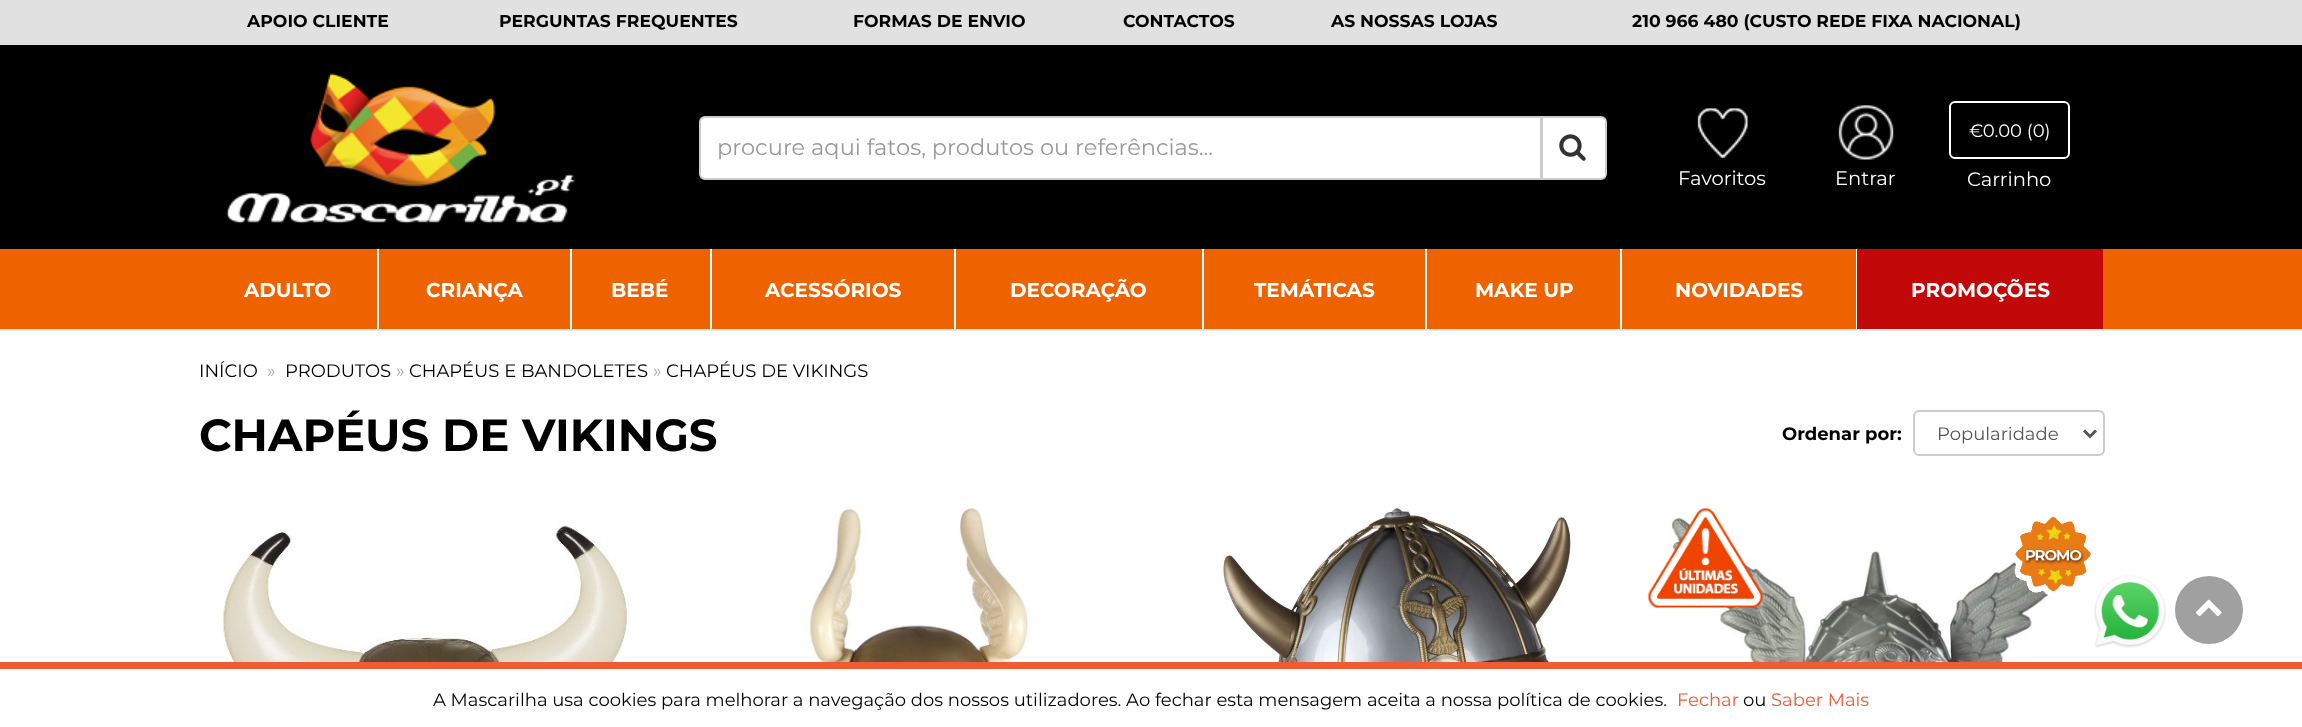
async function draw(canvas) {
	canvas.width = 2302;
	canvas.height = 727;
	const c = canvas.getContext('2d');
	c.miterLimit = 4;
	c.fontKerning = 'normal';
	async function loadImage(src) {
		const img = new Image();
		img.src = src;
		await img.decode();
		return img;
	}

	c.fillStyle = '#fff';
	c.fillRect(0, 0, 2302, 727);
	c.fillStyle = '#e1e1e1';
	c.fillRect(0, 0, 2302, 45);
	c.font = 'bold 17.25px Montserrat';
	c.fillStyle = '#000';
	for (const [text, x, y] of [
		['APOIO CLIENTE', 247, 27],
		['PERGUNTAS FREQUENTES', 499, 27],
		['FORMAS DE ENVIO', 853, 27],
		['CONTACTOS', 1123, 27],
		['AS NOSSAS LOJAS', 1331, 27],
		['210 966 480 (CUSTO REDE FIXA NACIONAL)', 1632, 27],
	]) {
		c.fillText(text, x, y);
	}
	c.fillRect(0, 45, 2302, 204);
	c.drawImage(await loadImage('img1.png'), 226, 73, 349, 151);
	c.fillStyle = '#fff';
	c.beginPath();
	c.roundRect(1542, 117, 64, 62, [0, 5, 5, 0]);
	c.fill();
	c.strokeStyle = '#ccc';
	c.lineWidth = 2;
	c.stroke();
	c.beginPath();
	c.roundRect(700, 117, 841, 62, [5, 0, 0, 5]);
	c.fill();
	c.stroke();
	c.font = '22.5px Montserrat';
	c.fillStyle = '#999';
	c.fillText('procure aqui fatos, produtos ou referências...', 717, 155);
	c.drawImage(await loadImage('img2.png'), 1559, 134, 27, 27);
	c.drawImage(await loadImage('img3.png'), 1697, 108, 51, 51);
	c.font = '19.5px Montserrat';
	c.fillStyle = '#fff';
	c.fillText('Favoritos', 1678, 185);
	c.drawImage(await loadImage('img4.png'), 1838, 105, 56, 55);
	c.fillText('Entrar', 1835, 185);
	c.beginPath();
	c.roundRect(1950, 102, 119, 56, 5);
	c.strokeStyle = '#fff';
	c.stroke();
	c.font = '18px Montserrat';
	c.fillText('€0.00 (0)', 1969, 137);
	c.font = '19.5px Montserrat';
	c.fillText('Carrinho', 1967, 186);
	for (const [x, y, w, h, color] of [
		[0, 249, 2302, 80, '#ee6200'],
		[0, 329, 2302, 2, '#e7e7e7'],
		[377, 249, 2, 80, '#fff'],
	]) {
		c.fillStyle = color;
		c.fillRect(x, y, w, h);
	}
	c.font = 'bold 20px Montserrat';
	c.fillText('ADULTO', 244, 297);
	c.fillRect(570, 249, 2, 80);
	c.fillText('CRIANÇA', 426, 297);
	c.fillRect(710, 249, 2, 80);
	c.fillText('BEBÉ', 611, 297);
	c.fillRect(954, 249, 2, 80);
	c.fillText('ACESSÓRIOS', 765, 297);
	c.fillRect(1202, 249, 2, 80);
	c.fillText('DECORAÇÃO', 1010, 297);
	c.fillRect(1425, 249, 2, 80);
	c.fillText('TEMÁTICAS', 1254, 297);
	c.fillRect(1620, 249, 2, 80);
	c.fillText('MAKE UP', 1475, 297);
	c.fillRect(1856, 249, 1, 80);
	c.fillText('NOVIDADES', 1675, 297);
	c.fillStyle = '#c20808';
	c.fillRect(1857, 249, 246, 80);
	c.fillStyle = '#fff';
	c.fillText('PROMOÇÕES', 1911, 297);
	c.font = '18px Montserrat';
	c.fillStyle = '#000';
	c.fillText('INÍCIO', 199, 377);
	c.fillStyle = '#aaa';
	c.fillText('»', 267, 377);
	c.fillStyle = '#000';
	c.fillText('PRODUTOS', 285, 377);
	c.fillStyle = '#aaa';
	c.fillText('»', 396, 377);
	c.fillStyle = '#000';
	c.fillText('CHAPÉUS E BANDOLETES', 409, 377);
	c.fillStyle = '#aaa';
	c.fillText('»', 653, 377);
	c.fillStyle = '#000';
	c.fillText('CHAPÉUS DE VIKINGS', 666, 377);
	c.font = 'bold 45px Montserrat';
	c.fillText('CHAPÉUS DE VIKINGS', 199, 451);
	c.font = 'bold 18px Montserrat';
	c.fillText('Ordenar por:', 1782, 440);
	c.fillStyle = '#ececec';
	c.beginPath();
	c.moveTo(1918, 412);
	c.lineTo(2098, 412);
	c.bezierCurveTo(2101, 412, 2103, 415, 2103, 417);
	c.bezierCurveTo(2103, 414, 2102, 412, 2099, 411);
	c.lineTo(1918, 411);
	c.bezierCurveTo(1915, 412, 1914, 414, 1914, 417);
	c.bezierCurveTo(1914, 415, 1916, 412, 1918, 412);
	c.closePath();
	c.fill();
	c.beginPath();
	c.roundRect(1914, 411, 190, 44, 5);
	c.strokeStyle = '#ccc';
	c.stroke();
	c.beginPath();
	c.moveTo(2084, 430.5);
	c.lineTo(2090, 436.5);
	c.lineTo(2096, 430.5);
	c.strokeStyle = '#555';
	c.lineWidth = 3;
	c.stroke();
	c.font = '18px Montserrat';
	c.fillStyle = '#555';
	c.fillText('Popularidade', 1937, 440);
	c.drawImage(await loadImage('img5.png'), 221, 521, 408, 141);
	c.drawImage(await loadImage('img6.png'), 805, 507, 223, 155);
	c.drawImage(await loadImage('img7.png'), 1222, 506, 351, 156);
	c.drawImage(await loadImage('img10.png'), 1668, 518, 411, 144);
	c.drawImage(await loadImage('img8.png'), 1648, 508, 115, 100);
	c.drawImage(await loadImage('img9.png'), 2013, 516, 78, 80);
	c.drawImage(await loadImage('img11.png'), 2094, 575, 72, 73);
	c.fillStyle = '#a0a0a0';
	c.beginPath();
	c.arc(2209, 610, 34, 0, 2 * Math.PI);
	c.fill();
	c.drawImage(await loadImage('img12.png'), 2196, 599, 26, 18);
	c.fillStyle = '#ef5b33';
	c.fillRect(0, 662, 2302, 7);
	c.fillStyle = '#000';
	c.fillText('A Mascarilha usa cookies para melhorar a navegação dos nossos utilizadores. Ao fechar esta mensagem aceita a nossa política de cookies.', 433, 706);
	c.fillStyle = '#ef5b33';
	c.fillText('Fechar', 1677, 706);
	c.fillStyle = '#000';
	c.fillText('ou', 1743, 706);
	c.fillStyle = '#ef5b33';
	c.fillText('Saber Mais', 1771, 706);
}

draw(document.querySelector('canvas'));
